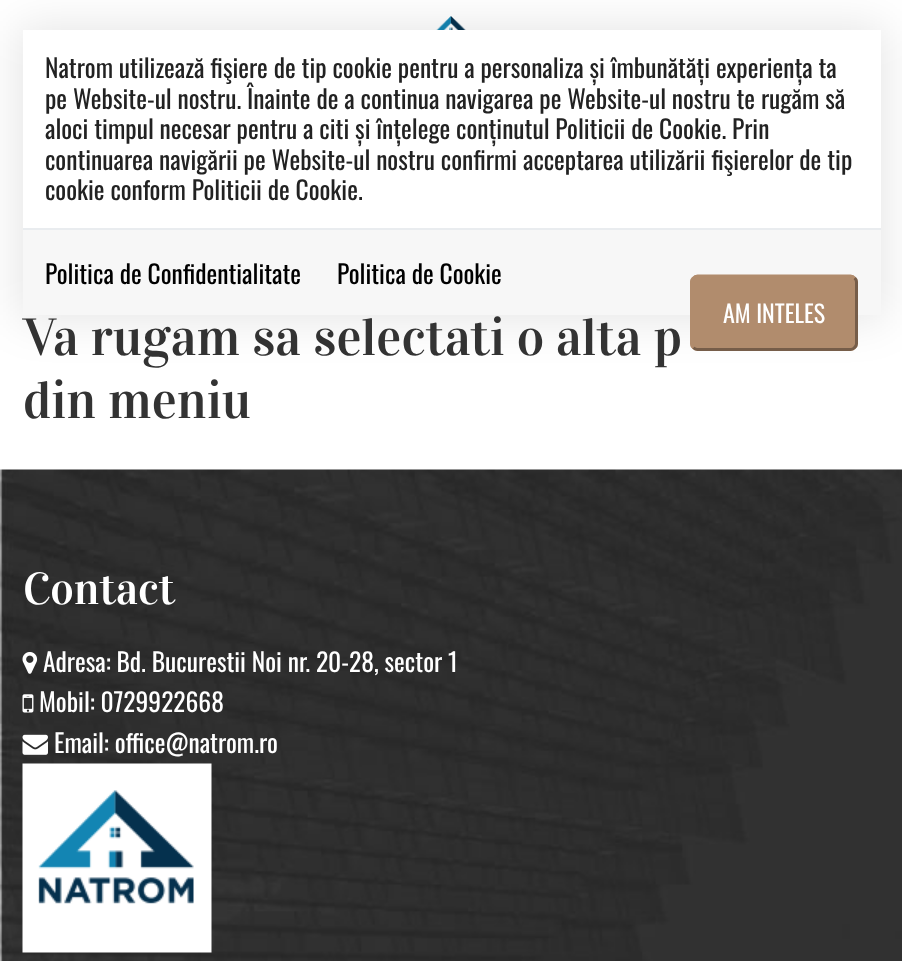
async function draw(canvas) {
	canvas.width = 902;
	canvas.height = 961;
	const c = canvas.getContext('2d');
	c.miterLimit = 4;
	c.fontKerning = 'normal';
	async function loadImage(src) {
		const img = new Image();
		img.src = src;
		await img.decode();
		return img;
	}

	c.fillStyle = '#fff';
	c.fillRect(0, 0, 902, 961);
	c.drawImage(await loadImage('img1.png'), 426, 16, 50, 14);
	c.fillStyle = '#0000001a';
	c.filter = 'blur(22.5px)';
	c.beginPath();
	c.rect(18, 26, 867, 294);
	c.fill();
	c.filter = 'none';
	c.fillStyle = '#fff';
	c.fillRect(23, 30, 858, 198);
	c.font = '25.5px Oswald';
	c.fillStyle = '#222';
	for (const [text, x, y] of [
		['Natrom utilizează fişiere de tip cookie pentru a personaliza și îmbunătăți experiența ta', 45, 78],
		['pe Website-ul nostru. Înainte de a continua navigarea pe Website-ul nostru te rugăm să', 45, 109],
		['aloci timpul necesar pentru a citi și înțelege conținutul Politicii de Cookie. Prin', 45, 139],
		['continuarea navigării pe Website-ul nostru confirmi acceptarea utilizării fişierelor de tip', 45, 170],
		['cookie conform Politicii de Cookie.', 45, 200],
	]) {
		c.fillText(text, x, y);
	}
	c.fillStyle = '#f7f7f7';
	c.fillRect(23, 230, 858, 85);
	c.fillStyle = '#e9ecef';
	c.fillRect(23, 228, 858, 2);
	c.fillStyle = '#000';
	c.fillText('Politica de Confidentialitate', 45, 284);
	c.fillText('Politica de Cookie', 337, 284);
	c.fillStyle = '#b18c6d';
	c.beginPath();
	c.roundRect(690, 275, 168, 76, 8);
	c.fill();
	c.beginPath();
	c.moveTo(854.5, 278);
	c.bezierCurveTo(856, 279, 856.5, 280.5, 856.5, 282);
	c.lineTo(856.5, 343.5);
	c.bezierCurveTo(856.5, 345, 856, 346.5, 854.5, 347.5);
	c.bezierCurveTo(853.5, 349, 852, 349.5, 850.5, 349.5);
	c.lineTo(697.5, 349.5);
	c.bezierCurveTo(696, 349.5, 694.5, 349, 693.5, 347.5);
	c.strokeStyle = '#765d49';
	c.lineWidth = 3;
	c.stroke();
	c.beginPath();
	c.moveTo(693.5, 347.5);
	c.bezierCurveTo(692, 346.5, 691.5, 345, 691.5, 343.5);
	c.lineTo(691.5, 282);
	c.bezierCurveTo(691.5, 280.5, 692, 279, 693.5, 278);
	c.bezierCurveTo(694.5, 276.5, 696, 276, 697.5, 276);
	c.lineTo(850.5, 276);
	c.bezierCurveTo(852, 276, 853.5, 276.5, 854.5, 278);
	c.strokeStyle = '#b18c6d';
	c.stroke();
	c.font = '24px Oswald';
	c.fillStyle = '#fff';
	c.fillText('AM INTELES', 723, 323);
	c.font = '52.5px Vidaloka';
	c.fillStyle = '#333';
	c.fillText('Va rugam sa selectati o alta p', 23, 355);
	c.fillText('din meniu', 23, 418);
	c.drawImage(await loadImage('img2.png'), 0, 469, 902, 492);
	c.font = '45px Vidaloka';
	c.fillStyle = '#fff';
	c.fillText('Contact', 23, 604);
	c.drawImage(await loadImage('img3.png'), 22, 652, 16, 22);
	c.font = '25.5px Oswald';
	c.fillText('Adresa: Bd. Bucurestii Noi nr. 20-28, sector 1', 43, 672);
	c.drawImage(await loadImage('img4.png'), 22, 694, 12, 19);
	c.fillText('Mobil: 0729922668', 39, 712);
	c.drawImage(await loadImage('img5.png'), 22, 734, 26, 21);
	c.fillText('Email: office@natrom.ro', 54, 753);
	c.drawImage(await loadImage('img6.png'), 22, 763, 190, 190);
}

draw(document.querySelector('canvas'));
